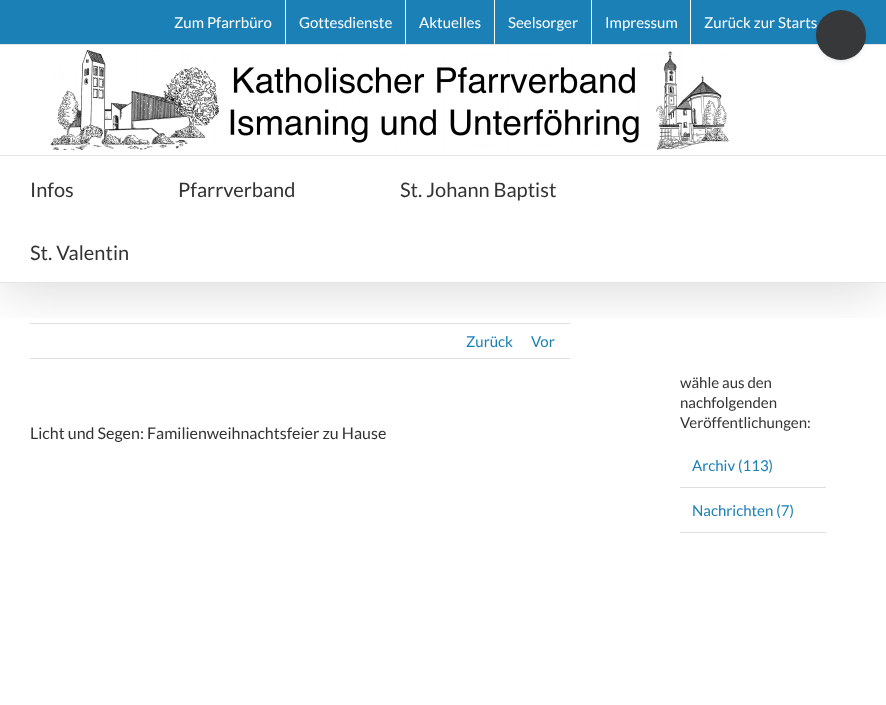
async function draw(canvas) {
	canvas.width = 886;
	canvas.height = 705;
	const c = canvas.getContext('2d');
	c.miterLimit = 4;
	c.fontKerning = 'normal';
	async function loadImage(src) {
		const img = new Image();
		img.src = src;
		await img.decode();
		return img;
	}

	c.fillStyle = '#fff';
	c.fillRect(0, 0, 886, 705);
	c.fillStyle = '#e0dede';
	c.fillRect(30, 323, 540, 1);
	c.fillRect(30, 358, 540, 1);
	c.save();
	c.beginPath();
	c.rect(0, 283, 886, 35);
	c.clip();
	c.fillStyle = '#00000024';
	c.filter = 'blur(25px)';
	c.beginPath();
	c.rect(2, 12, 882, 279);
	c.fill();
	c.filter = 'none';
	c.restore();
	c.fillStyle = '#1a80b6';
	c.fillRect(0, 0, 886, 44);
	c.fillStyle = '#e5e5e5';
	c.fillRect(0, 44, 886, 1);
	c.font = '15px Lato';
	c.fillStyle = '#fff';
	c.fillText('Zum Pfarrbüro', 174, 28);
	c.fillRect(285, 0, 1, 44);
	c.fillText('Gottesdienste', 299, 28);
	c.fillRect(405, 0, 1, 44);
	c.fillText('Aktuelles', 419, 28);
	c.fillRect(494, 0, 1, 44);
	c.fillText('Seelsorger', 508, 28);
	c.fillRect(591, 0, 1, 44);
	c.fillText('Impressum', 605, 28);
	c.fillRect(690, 0, 1, 44);
	c.fillText('Zurück zur Starts', 704, 28);
	c.fillStyle = '#e5e5e5';
	c.fillRect(0, 155, 886, 1);
	c.drawImage(await loadImage('img1.png'), 50, 50, 679, 100);
	c.fillRect(0, 282, 886, 1);
	c.font = '20px Lato';
	c.fillStyle = '#333';
	for (const [text, x, y] of [
		['Infos', 30, 197],
		['Pfarrverband', 178, 197],
		['St. Johann Baptist', 400, 197],
		['St. Valentin', 30, 260],
	]) {
		c.fillText(text, x, y);
	}
	c.fillStyle = '#00000024';
	c.filter = 'blur(2.5px)';
	c.beginPath();
	c.roundRect(818, 15, 46, 46, 23);
	c.fill();
	c.filter = 'none';
	c.fillStyle = '#363839';
	c.beginPath();
	c.arc(841, 35, 25, 0, 2 * Math.PI);
	c.fill();
	c.font = '15px Lato';
	c.fillStyle = '#1a80b6';
	c.fillText('Zurück', 466, 347);
	c.fillText('Vor', 531, 347);
	c.font = '16px Lato';
	c.fillStyle = '#333';
	c.fillText('Licht und Segen: Familienweihnachtsfeier zu Hause', 30, 439);
	c.font = '15px Lato';
	for (const [text, x, y] of [
		['wähle aus den', 680, 388],
		['nachfolgenden', 680, 408],
		['Veröffentlichungen:', 680, 428],
	]) {
		c.fillText(text, x, y);
	}
	c.fillStyle = '#e0dede';
	c.fillRect(680, 487, 146, 1);
	c.fillStyle = '#1a80b6';
	c.fillText('Archiv (113)', 692, 471);
	c.fillStyle = '#e0dede';
	c.fillRect(680, 532, 146, 1);
	c.fillStyle = '#1a80b6';
	c.fillText('Nachrichten (7)', 692, 516);
}

draw(document.querySelector('canvas'));
